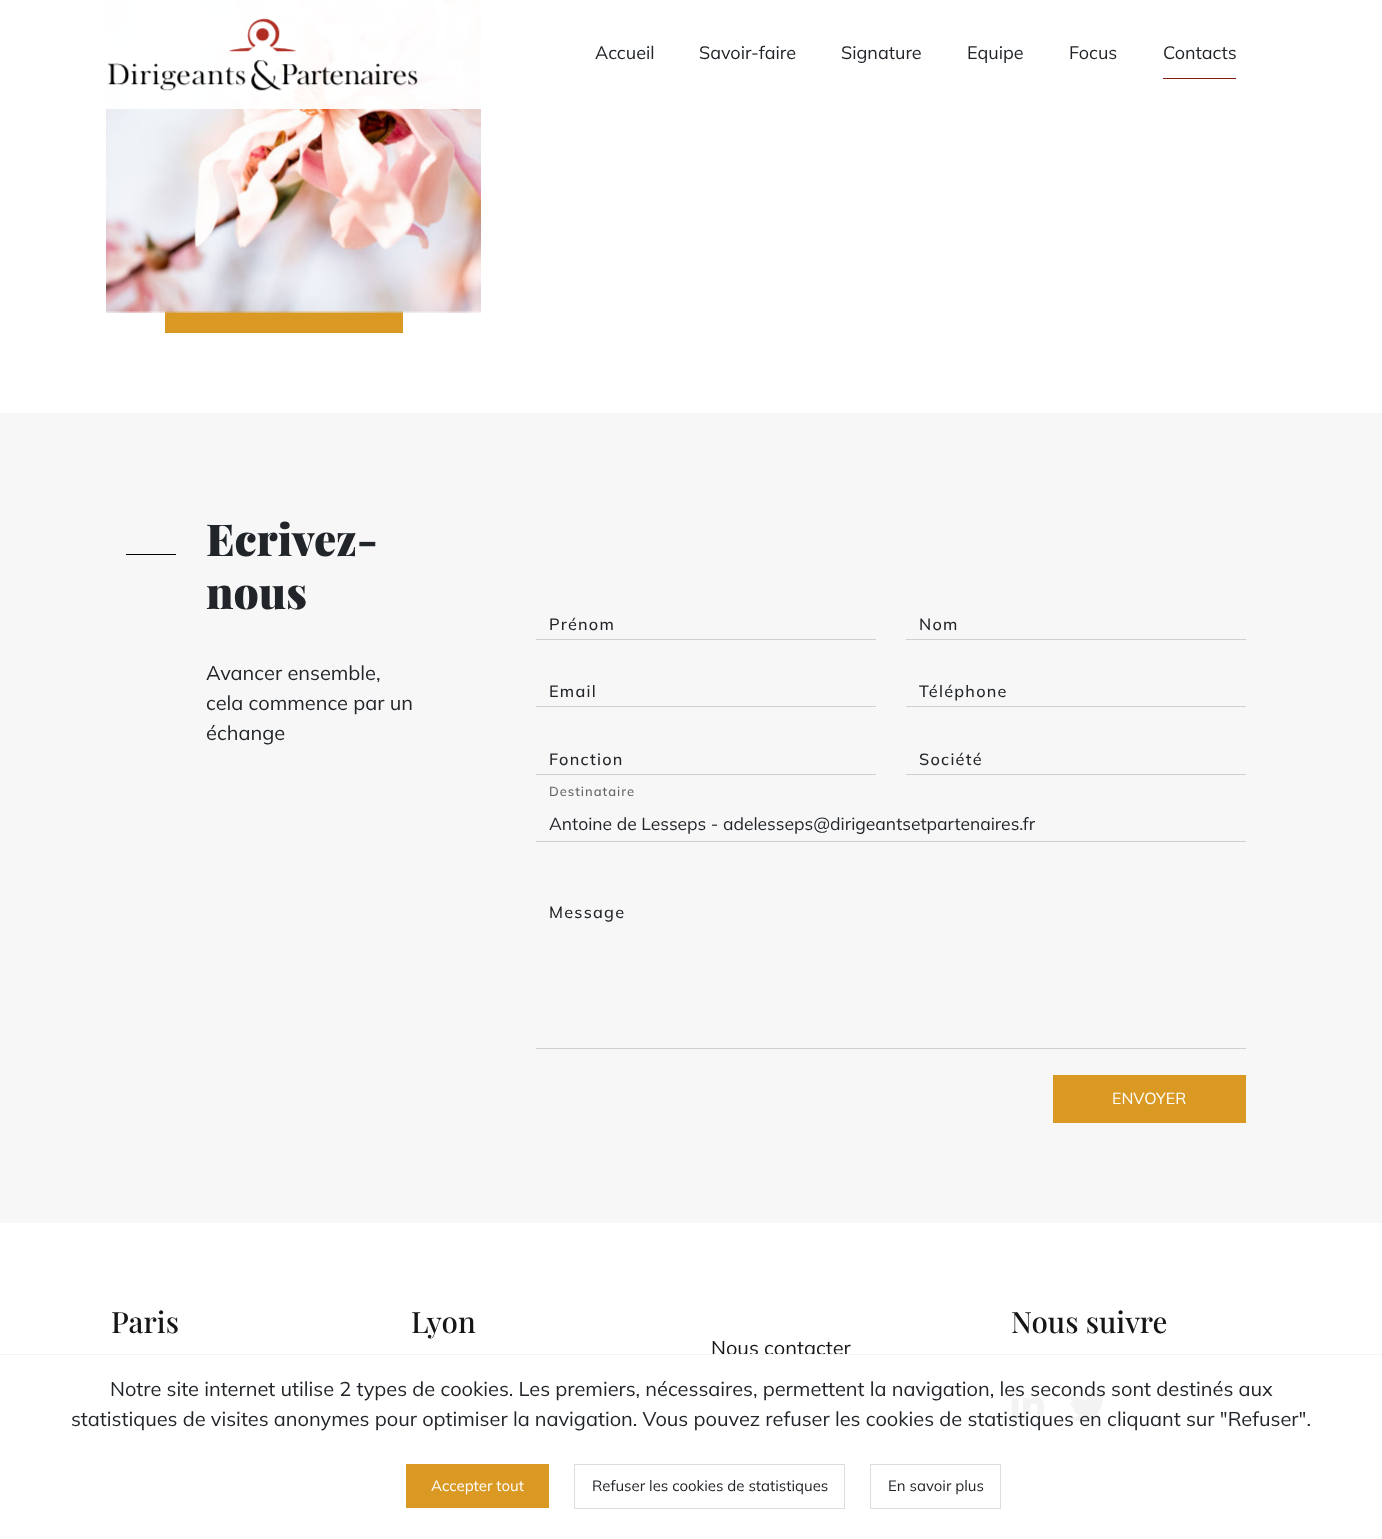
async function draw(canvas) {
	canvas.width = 1382;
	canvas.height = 1539;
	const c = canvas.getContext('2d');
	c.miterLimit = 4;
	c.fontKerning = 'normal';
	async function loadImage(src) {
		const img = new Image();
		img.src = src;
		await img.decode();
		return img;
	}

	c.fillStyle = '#fff';
	c.fillRect(0, 0, 1382, 1539);
	c.fillStyle = '#d99923';
	c.fillRect(165, 311, 238, 22);
	c.drawImage(await loadImage('img2.png'), 106, 0, 375, 313);
	c.fillStyle = '#fffffff2';
	c.fillRect(106, 0, 375, 109);
	c.drawImage(await loadImage('img1.png'), 107, 18, 311, 73);
	c.font = '18px Mulish';
	c.fillStyle = '#212529';
	for (const [text, x, y] of [
		['Accueil', 595, 59],
		['Savoir-faire', 699, 59],
		['Signature', 841, 59],
		['Equipe', 967, 59],
		['Focus', 1069, 59],
	]) {
		c.fillText(text, x, y);
	}
	c.fillStyle = '#7e1e10';
	c.fillRect(1163, 78, 73, 1);
	c.fillStyle = '#212529';
	c.fillText('Contacts', 1163, 59);
	c.fillStyle = '#f7f7f7';
	c.fillRect(0, 413, 1382, 810);
	c.fillStyle = '#000';
	c.fillRect(126, 554, 50, 1);
	c.font = '900 44px Playfair Display';
	c.fillStyle = '#212529';
	c.fillText('Ecrivez-', 206, 556);
	c.fillText('nous', 206, 609);
	c.font = '20px Mulish';
	for (const [text, x, y] of [
		['Avancer ensemble,', 206, 680],
		['cela commence par un', 206, 710],
		['échange', 206, 740],
	]) {
		c.fillText(text, x, y);
	}
	c.letterSpacing = '1.25px';
	c.font = '500 16.25px Mulish';
	c.fillText('Prénom', 549, 630);
	c.fillStyle = '#cfd0d1';
	c.fillRect(536, 639, 340, 1);
	c.fillStyle = '#212529';
	c.fillText('Nom', 919, 630);
	c.fillStyle = '#cfd0d1';
	c.fillRect(906, 639, 340, 1);
	c.fillStyle = '#212529';
	c.fillText('Email', 549, 697);
	c.fillStyle = '#cfd0d1';
	c.fillRect(536, 706, 340, 1);
	c.fillStyle = '#212529';
	c.fillText('Téléphone', 919, 697);
	c.fillStyle = '#cfd0d1';
	c.fillRect(906, 706, 340, 1);
	c.fillStyle = '#212529';
	c.fillText('Fonction', 549, 765);
	c.fillStyle = '#cfd0d1';
	c.fillRect(536, 774, 340, 1);
	c.fillStyle = '#212529';
	c.fillText('Société', 919, 765);
	c.fillStyle = '#cfd0d1';
	c.fillRect(906, 774, 340, 1);
	c.letterSpacing = '1px';
	c.font = '500 13px Mulish';
	c.fillStyle = '#616467';
	c.fillText('Destinataire', 549, 796);
	c.fillStyle = '#cfd0d1';
	c.fillRect(536, 841, 710, 1);
	c.letterSpacing = '0px';
	c.font = '17.5px Mulish';
	c.fillStyle = '#212529';
	c.fillText('Antoine de Lesseps - adelesseps@dirigeantsetpartenaires.fr', 549, 830);
	c.letterSpacing = '1.25px';
	c.font = '500 16.25px Mulish';
	c.fillText('Message', 549, 918);
	c.fillStyle = '#cfd0d1';
	c.fillRect(536, 1048, 710, 1);
	c.fillStyle = '#d99923';
	c.fillRect(1053, 1075, 193, 48);
	c.letterSpacing = '0px';
	c.font = '16px Mulish';
	c.fillStyle = '#fff';
	c.fillText('ENVOYER', 1112, 1104);
	c.font = '500 29.5px Playfair Display';
	c.fillStyle = '#161616';
	for (const [text, x, y] of [
		['Paris', 111, 1333],
		['Lyon', 411, 1333],
		['Nous suivre', 1011, 1333],
	]) {
		c.fillText(text, x, y);
	}
	c.drawImage(await loadImage('img3.png'), 1011, 1387, 34, 33);
	c.drawImage(await loadImage('img4.png'), 1069, 1390, 38, 32);
	c.font = '20px Mulish';
	c.fillText('Nous contacter', 711, 1355);
	c.fillStyle = '#fffffff2';
	c.fillRect(730, 1355, 377, 67);
	c.fillStyle = '#f4f4f4';
	c.fillRect(0, 1354, 1382, 1);
	c.fillStyle = '#212529';
	c.fillText('Notre site internet utilise 2 types de cookies. Les premiers, nécessaires, permettent la navigation, les seconds sont destinés aux', 110, 1396);
	c.fillText('statistiques de visites anonymes pour optimiser la navigation. Vous pouvez refuser les cookies de statistiques en cliquant sur "Refuser".', 71, 1426);
	c.fillStyle = '#d99923';
	c.fillRect(406, 1464, 143, 44);
	c.font = '15px Mulish';
	c.fillStyle = '#fff';
	c.fillText('Accepter tout', 431, 1491);
	c.strokeStyle = '#ddd';
	c.strokeRect(574.5, 1464.5, 270, 44);
	c.fillStyle = '#212529';
	c.fillText('Refuser les cookies de statistiques', 592, 1491);
	c.strokeRect(870.5, 1464.5, 130, 44);
	c.fillText('En savoir plus', 888, 1491);
}

draw(document.querySelector('canvas'));
